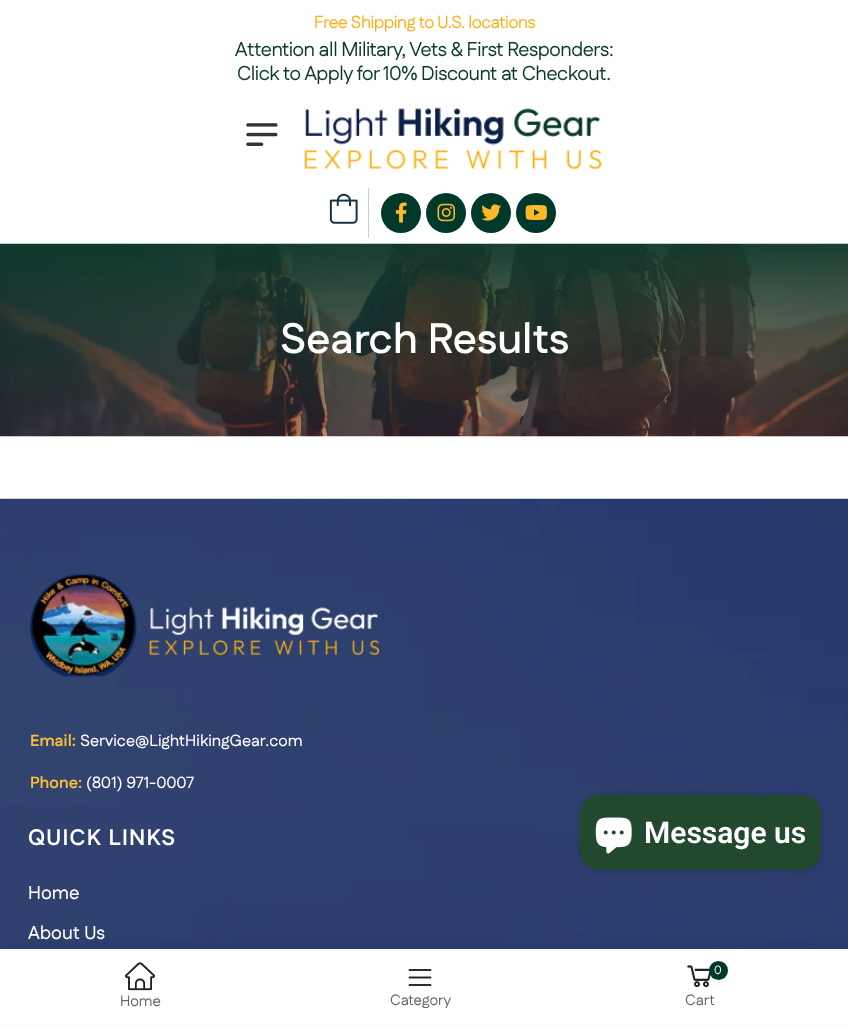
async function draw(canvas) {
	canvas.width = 848;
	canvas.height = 1026;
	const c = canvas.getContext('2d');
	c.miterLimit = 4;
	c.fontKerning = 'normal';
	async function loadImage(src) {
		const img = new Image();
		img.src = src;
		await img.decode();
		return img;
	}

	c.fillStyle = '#fff';
	c.fillRect(0, 0, 848, 1026);
	c.letterSpacing = '-0.45px';
	c.font = '17.5px Fustat';
	c.fillStyle = '#fdae14';
	c.fillText('Free Shipping to U.S. locations', 314, 28);
	c.font = '20px Fustat';
	c.fillStyle = '#0c392c';
	c.fillText('Attention all Military, Vets & First Responders:', 235, 56);
	c.fillText('Click to Apply for 10% Discount at Checkout.', 237, 80);
	c.drawImage(await loadImage('img1.png'), 246, 123, 32, 23);
	c.drawImage(await loadImage('img2.png'), 304, 107, 298, 63);
	c.fillStyle = '#ccc';
	c.fillRect(368, 188, 1, 50);
	c.drawImage(await loadImage('img3.png'), 329, 193, 29, 31);
	c.fillStyle = '#00382b';
	c.beginPath();
	c.arc(401, 213, 20, 0, 2 * Math.PI);
	c.fill();
	c.drawImage(await loadImage('img4.png'), 395, 202, 12, 21);
	c.beginPath();
	c.arc(446, 213, 20, 0, 2 * Math.PI);
	c.fill();
	c.drawImage(await loadImage('img5.png'), 437, 203, 18, 19);
	c.beginPath();
	c.arc(491, 213, 20, 0, 2 * Math.PI);
	c.fill();
	c.drawImage(await loadImage('img6.png'), 481, 204, 21, 17);
	c.beginPath();
	c.arc(536, 213, 20, 0, 2 * Math.PI);
	c.fill();
	c.drawImage(await loadImage('img7.png'), 525, 205, 22, 15);
	c.drawImage(await loadImage('img8.png'), 0, 243, 848, 194);
	c.letterSpacing = '0px';
	c.font = '600 42.5px Fustat';
	c.fillStyle = '#fff';
	c.fillText('Search Results', 280, 353);
	c.drawImage(await loadImage('img9.png'), 0, 498, 848, 451);
	c.drawImage(await loadImage('img10.png'), 30, 573, 349, 104);
	c.font = 'bold 16.25px Fustat';
	c.fillStyle = '#fdbe3c';
	c.fillText('Email:', 30, 746);
	c.font = '500 16.25px Fustat';
	c.fillStyle = '#fff';
	c.fillText('Service@LightHikingGear.com', 80, 746);
	c.font = 'bold 16.25px Fustat';
	c.fillStyle = '#fdbe3c';
	c.fillText('Phone:', 30, 788);
	c.font = '500 16.25px Fustat';
	c.fillStyle = '#fff';
	c.fillText('(801) 971-0007', 86, 788);
	c.letterSpacing = '1.25px';
	c.font = 'bold 22.5px Fustat';
	c.fillText('QUICK LINKS', 28, 845);
	c.letterSpacing = '0px';
	c.font = '500 18.75px Fustat';
	c.fillText('Home', 28, 899);
	c.fillText('About Us', 28, 939);
	c.fillStyle = '#00000026';
	c.filter = 'blur(3px)';
	c.beginPath();
	c.roundRect(580, 795, 241, 75, 20);
	c.fill();
	c.filter = 'none';
	c.fillStyle = '#22492d';
	c.beginPath();
	c.roundRect(580, 795, 241, 75, 20);
	c.fill();
	c.drawImage(await loadImage('img11.png'), 595, 817, 37, 37);
	c.font = '600 30px Roboto';
	c.fillStyle = '#fff';
	c.fillText('Message us', 644, 843);
	c.fillStyle = '#0000000d';
	c.filter = 'blur(6px)';
	c.beginPath();
	c.rect(0, 943, 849, 77);
	c.fill();
	c.filter = 'none';
	c.fillStyle = '#fff';
	c.fillRect(0, 949, 848, 76);
	c.drawImage(await loadImage('img12.png'), 125, 962, 30, 29);
	c.font = '15px Fustat';
	c.fillStyle = '#666';
	c.fillText('Home', 120, 1006);
	c.drawImage(await loadImage('img13.png'), 408, 969, 24, 17);
	c.fillText('Category', 390, 1005);
	c.drawImage(await loadImage('img14.png'), 687, 965, 24, 23);
	c.fillStyle = '#00382b';
	c.beginPath();
	c.arc(718.5, 970.5, 9.5, 0, 2 * Math.PI);
	c.fill();
	c.font = '12px Fustat';
	c.fillStyle = '#fff';
	c.fillText('0', 714, 974);
	c.font = '15px Fustat';
	c.fillStyle = '#666';
	c.fillText('Cart', 685, 1005);
}

draw(document.querySelector('canvas'));
